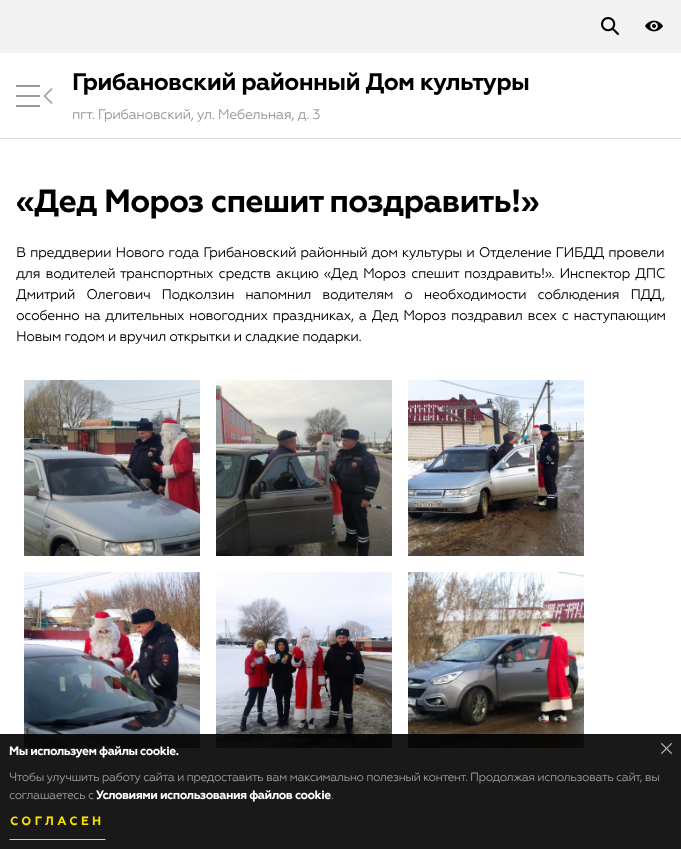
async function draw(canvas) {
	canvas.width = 681;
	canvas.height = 849;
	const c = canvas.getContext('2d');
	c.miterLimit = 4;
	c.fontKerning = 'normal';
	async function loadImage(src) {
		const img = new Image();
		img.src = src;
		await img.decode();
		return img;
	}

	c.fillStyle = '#fff';
	c.fillRect(0, 0, 681, 849);
	c.fillStyle = '#f3f3f3';
	c.fillRect(0, 0, 681, 53);
	c.drawImage(await loadImage('img1.png'), 601, 17, 18, 18);
	c.drawImage(await loadImage('img2.png'), 645, 20, 18, 12);
	c.fillStyle = '#d8d8d8';
	c.fillRect(0, 138, 681, 1);
	c.drawImage(await loadImage('img3.png'), 16, 85, 24, 22);
	c.drawImage(await loadImage('img4.png'), 43, 88, 10, 16);
	c.letterSpacing = '-0.7px';
	c.font = 'bold 24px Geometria';
	c.fillStyle = '#000';
	c.fillText('Грибановский районный Дом культуры', 72, 90);
	c.letterSpacing = '-0.45px';
	c.font = '14px Geometria';
	c.fillStyle = '#999';
	c.fillText('пгт. Грибановский, ул. Мебельная, д. 3', 72, 119);
	c.letterSpacing = '-0.9px';
	c.font = 'bold 32px Geometria';
	c.fillStyle = '#000';
	c.fillText('«Дед Мороз спешит поздравить!»', 16, 212);
	c.letterSpacing = '-0.45px';
	c.wordSpacing = '1px';
	c.font = '14px Geometria';
	c.fillText('В преддверии Нового года Грибановский районный дом культуры и Отделение ГИБДД провели', 16, 257);
	c.wordSpacing = '2.1px';
	c.fillText('для водителей транспортных средств акцию «Дед Мороз спешит поздравить!». Инспектор ДПС', 16, 278);
	c.wordSpacing = '8px';
	c.fillText('Дмитрий Олегович Подколзин напомнил водителям о необходимости соблюдения ПДД,', 16, 299);
	c.wordSpacing = '1.75px';
	c.fillText('особенно на длительных новогодних праздниках, а Дед Мороз поздравил всех с наступающим', 16, 320);
	c.wordSpacing = '0px';
	c.fillText('Новым годом и вручил открытки и сладкие подарки.', 16, 341);
	c.drawImage(await loadImage('img5.png'), 24, 380, 176, 176);
	c.drawImage(await loadImage('img6.png'), 216, 380, 176, 176);
	c.drawImage(await loadImage('img7.png'), 408, 380, 176, 176);
	c.drawImage(await loadImage('img8.png'), 24, 572, 176, 176);
	c.drawImage(await loadImage('img9.png'), 216, 572, 176, 176);
	c.drawImage(await loadImage('img10.png'), 408, 572, 176, 176);
	c.fillStyle = '#f3f3f3';
	c.fillRect(0, 836, 681, 13);
	c.fillStyle = '#000000e6';
	c.fillRect(0, 734, 681, 115);
	c.letterSpacing = '-0.5px';
	c.font = 'bold 12px Geometria';
	c.fillStyle = '#fff';
	c.fillText('Мы используем файлы cookie.', 9, 755);
	c.drawImage(await loadImage('img11.png'), 661, 743, 11, 11);
	c.font = '12px Geometria';
	c.fillStyle = '#999';
	c.fillText('Чтобы улучшить работу сайта и предоставить вам максимально полезный контент. Продолжая использовать сайт, вы', 9, 781);
	c.fillText('соглашаетесь с', 9, 799);
	c.font = 'bold 12px Geometria';
	c.fillStyle = '#fff';
	c.fillText('Условиями использования файлов cookie', 96, 799);
	c.font = '12px Geometria';
	c.fillStyle = '#999';
	c.fillText('.', 331, 799);
	c.fillStyle = '#fbe100';
	c.beginPath();
	c.moveTo(106, 840);
	c.lineTo(9, 840);
	c.lineTo(10, 839);
	c.lineTo(105, 839);
	c.closePath();
	c.fill();
	c.letterSpacing = '3.5px';
	c.font = 'bold 12px Geometria';
	c.fillText('СОГЛАСЕН', 10, 825);
}

draw(document.querySelector('canvas'));
